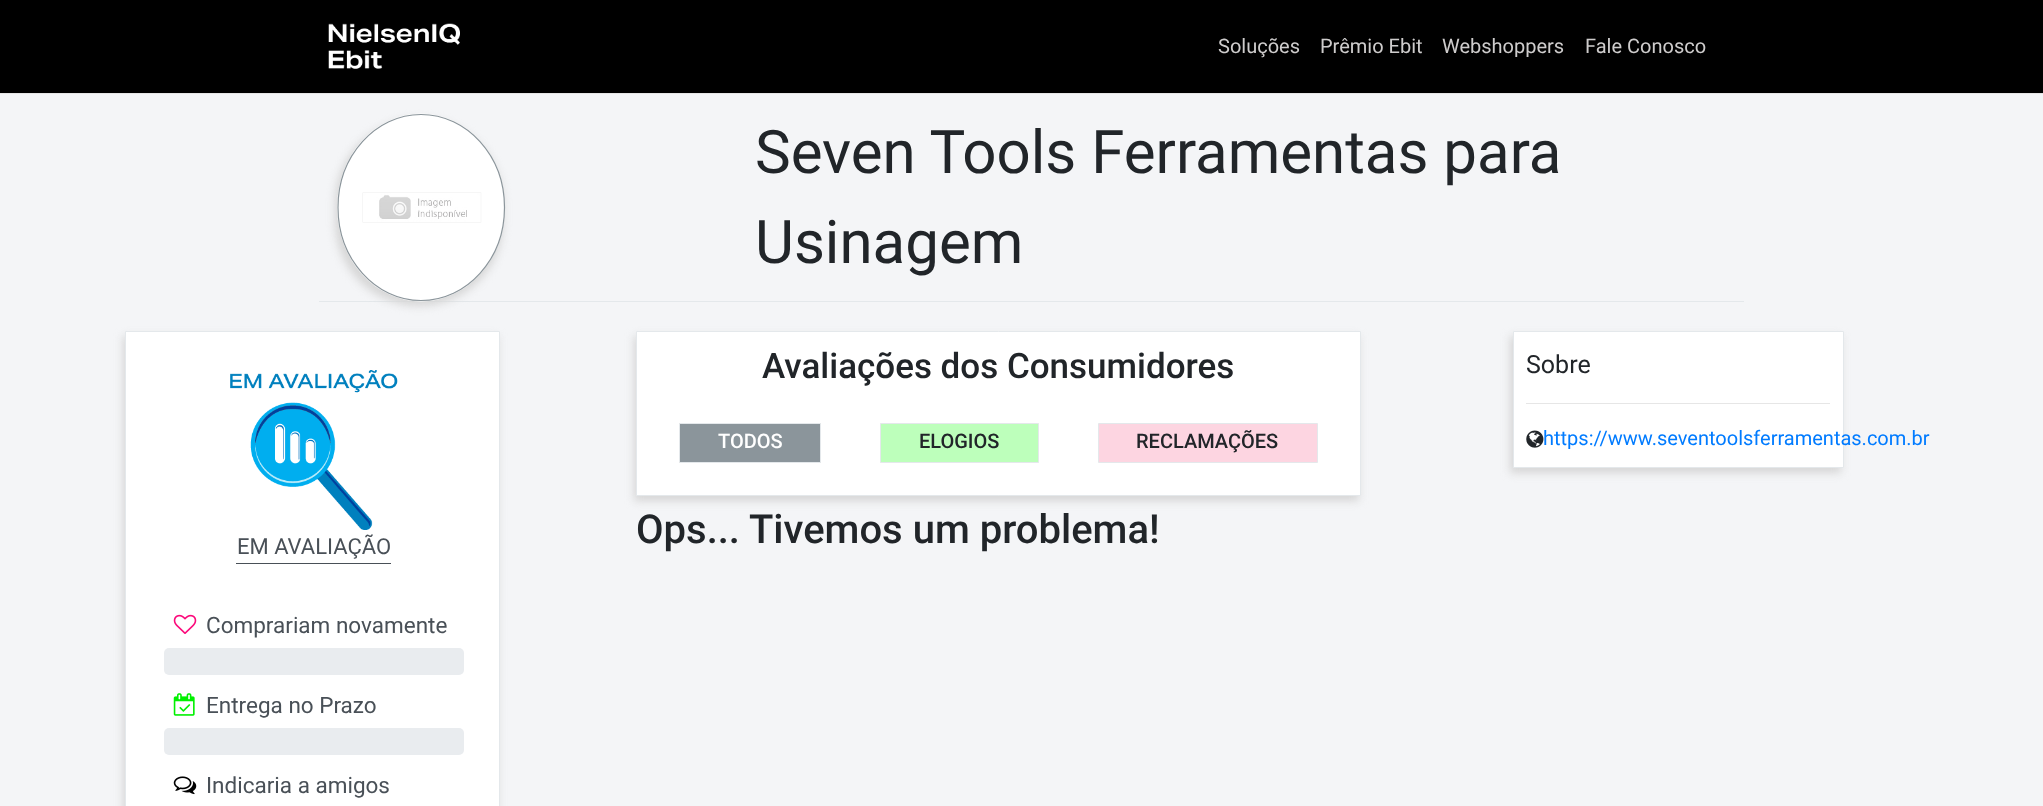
async function draw(canvas) {
	canvas.width = 2043;
	canvas.height = 806;
	const c = canvas.getContext('2d');
	c.miterLimit = 4;
	c.fontKerning = 'normal';
	async function loadImage(src) {
		const img = new Image();
		img.src = src;
		await img.decode();
		return img;
	}

	c.fillStyle = '#000';
	c.fillRect(0, 0, 2043, 806);
	c.fillStyle = '#e5e5e5';
	c.fillRect(0, 93, 2043, 1);
	c.drawImage(await loadImage('img1.png'), 328, 23, 132, 46);
	c.font = '20px Roboto';
	c.fillStyle = '#cecccc';
	for (const [text, x, y] of [
		['Soluções', 1218, 53],
		['Prêmio Ebit', 1320, 53],
		['Webshoppers', 1442, 53],
		['Fale Conosco', 1585, 53],
	]) {
		c.fillText(text, x, y);
	}
	c.fillStyle = '#f4f5f7';
	c.fillRect(0, 94, 2043, 712);
	c.fillStyle = '#e4e8eb';
	c.fillRect(319, 301, 1425, 1);
	c.fillStyle = '#d6d6d6';
	c.filter = 'blur(4.5px)';
	c.beginPath();
	c.roundRect(335, 119, 168, 187, 84);
	c.fill();
	c.filter = 'none';
	c.fillStyle = '#fff';
	c.beginPath();
	c.ellipse(421, 207.5, 84, 94, 0, 0, 2 * Math.PI);
	c.fill();
	c.beginPath();
	c.moveTo(421, 114.5);
	c.bezierCurveTo(467, 114.5, 504.5, 156, 504.5, 207.5);
	c.bezierCurveTo(504.5, 259, 467, 300.5, 421, 300.5);
	c.bezierCurveTo(375.5, 300.5, 338, 259, 338, 207.5);
	c.bezierCurveTo(338, 156, 375.5, 114.5, 421, 114.5);
	c.closePath();
	c.strokeStyle = '#8b959b';
	c.lineWidth = 1.2;
	c.stroke();
	c.drawImage(await loadImage('img2.png'), 362, 192, 120, 31);
	c.font = '60px Roboto';
	c.fillStyle = '#212529';
	c.fillText('Seven Tools Ferramentas para', 755, 173);
	c.fillText('Usinagem', 755, 263);
	c.fillStyle = '#d6d6d6';
	c.filter = 'blur(4.5px)';
	c.beginPath();
	c.rect(634, 336, 725, 165);
	c.fill();
	c.filter = 'none';
	c.fillStyle = '#fff';
	c.beginPath();
	c.rect(636.5, 331.5, 724, 164);
	c.fill();
	c.strokeStyle = '#e4e8eb';
	c.lineWidth = 1;
	c.stroke();
	c.font = '500 35px Roboto';
	c.fillStyle = '#212529';
	c.fillText('Avaliações dos Consumidores', 762, 378);
	c.fillStyle = '#8b959b';
	c.beginPath();
	c.rect(679.5, 423.5, 141, 39);
	c.fill();
	c.stroke();
	c.font = '500 20px Roboto';
	c.fillStyle = '#fff';
	c.fillText('TODOS', 718, 448);
	c.fillStyle = '#bdffbb';
	c.beginPath();
	c.rect(880.5, 423.5, 158, 39);
	c.fill();
	c.stroke();
	c.fillStyle = '#212529';
	c.fillText('ELOGIOS', 919, 448);
	c.fillStyle = '#fdd5e1';
	c.beginPath();
	c.rect(1098.5, 423.5, 219, 39);
	c.fill();
	c.stroke();
	c.fillStyle = '#212529';
	c.fillText('RECLAMAÇÕES', 1136, 448);
	c.font = '500 40px Roboto';
	c.fillText('Ops... Tivemos um problema!', 636, 543);
	c.fillStyle = '#d6d6d6';
	c.filter = 'blur(4.5px)';
	c.beginPath();
	c.rect(1510, 336, 331, 137);
	c.fill();
	c.filter = 'none';
	c.fillStyle = '#fff';
	c.beginPath();
	c.rect(1513.5, 331.5, 330, 136);
	c.fill();
	c.stroke();
	c.font = '25px Roboto';
	c.fillStyle = '#212529';
	c.fillText('Sobre', 1526, 373);
	c.fillStyle = '#e6e6e6';
	c.fillRect(1526, 403, 304, 1);
	c.drawImage(await loadImage('img3.png'), 1526, 430, 18, 18);
	c.font = '20px Roboto';
	c.fillStyle = '#007bff';
	c.fillText('https://www.seventoolsferramentas.com.br', 1543, 445);
	c.fillStyle = '#d6d6d6';
	c.filter = 'blur(4.5px)';
	c.beginPath();
	c.rect(123, 336, 375, 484);
	c.fill();
	c.filter = 'none';
	c.fillStyle = '#fff';
	c.beginPath();
	c.rect(125.5, 331.5, 374, 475);
	c.fill();
	c.stroke();
	c.drawImage(await loadImage('img4.png'), 230, 370, 168, 160);
	c.fillStyle = '#495057';
	c.fillRect(236, 563, 155, 1);
	c.font = '22px Roboto';
	c.fillText('EM AVALIAÇÃO', 237, 554);
	c.drawImage(await loadImage('img5.png'), 173, 614, 24, 20);
	c.font = '22.5px Roboto';
	c.fillText('Comprariam novamente', 206, 633);
	c.fillStyle = '#e9ecef';
	c.beginPath();
	c.roundRect(164, 648, 300, 27, 5);
	c.fill();
	c.drawImage(await loadImage('img6.png'), 173, 693, 22, 23);
	c.fillStyle = '#495057';
	c.fillText('Entrega no Prazo', 206, 713);
	c.fillStyle = '#e9ecef';
	c.beginPath();
	c.roundRect(164, 728, 300, 27, 5);
	c.fill();
	c.drawImage(await loadImage('img7.png'), 173, 776, 24, 19);
	c.fillStyle = '#495057';
	c.fillText('Indicaria a amigos', 206, 793);
}

draw(document.querySelector('canvas'));
